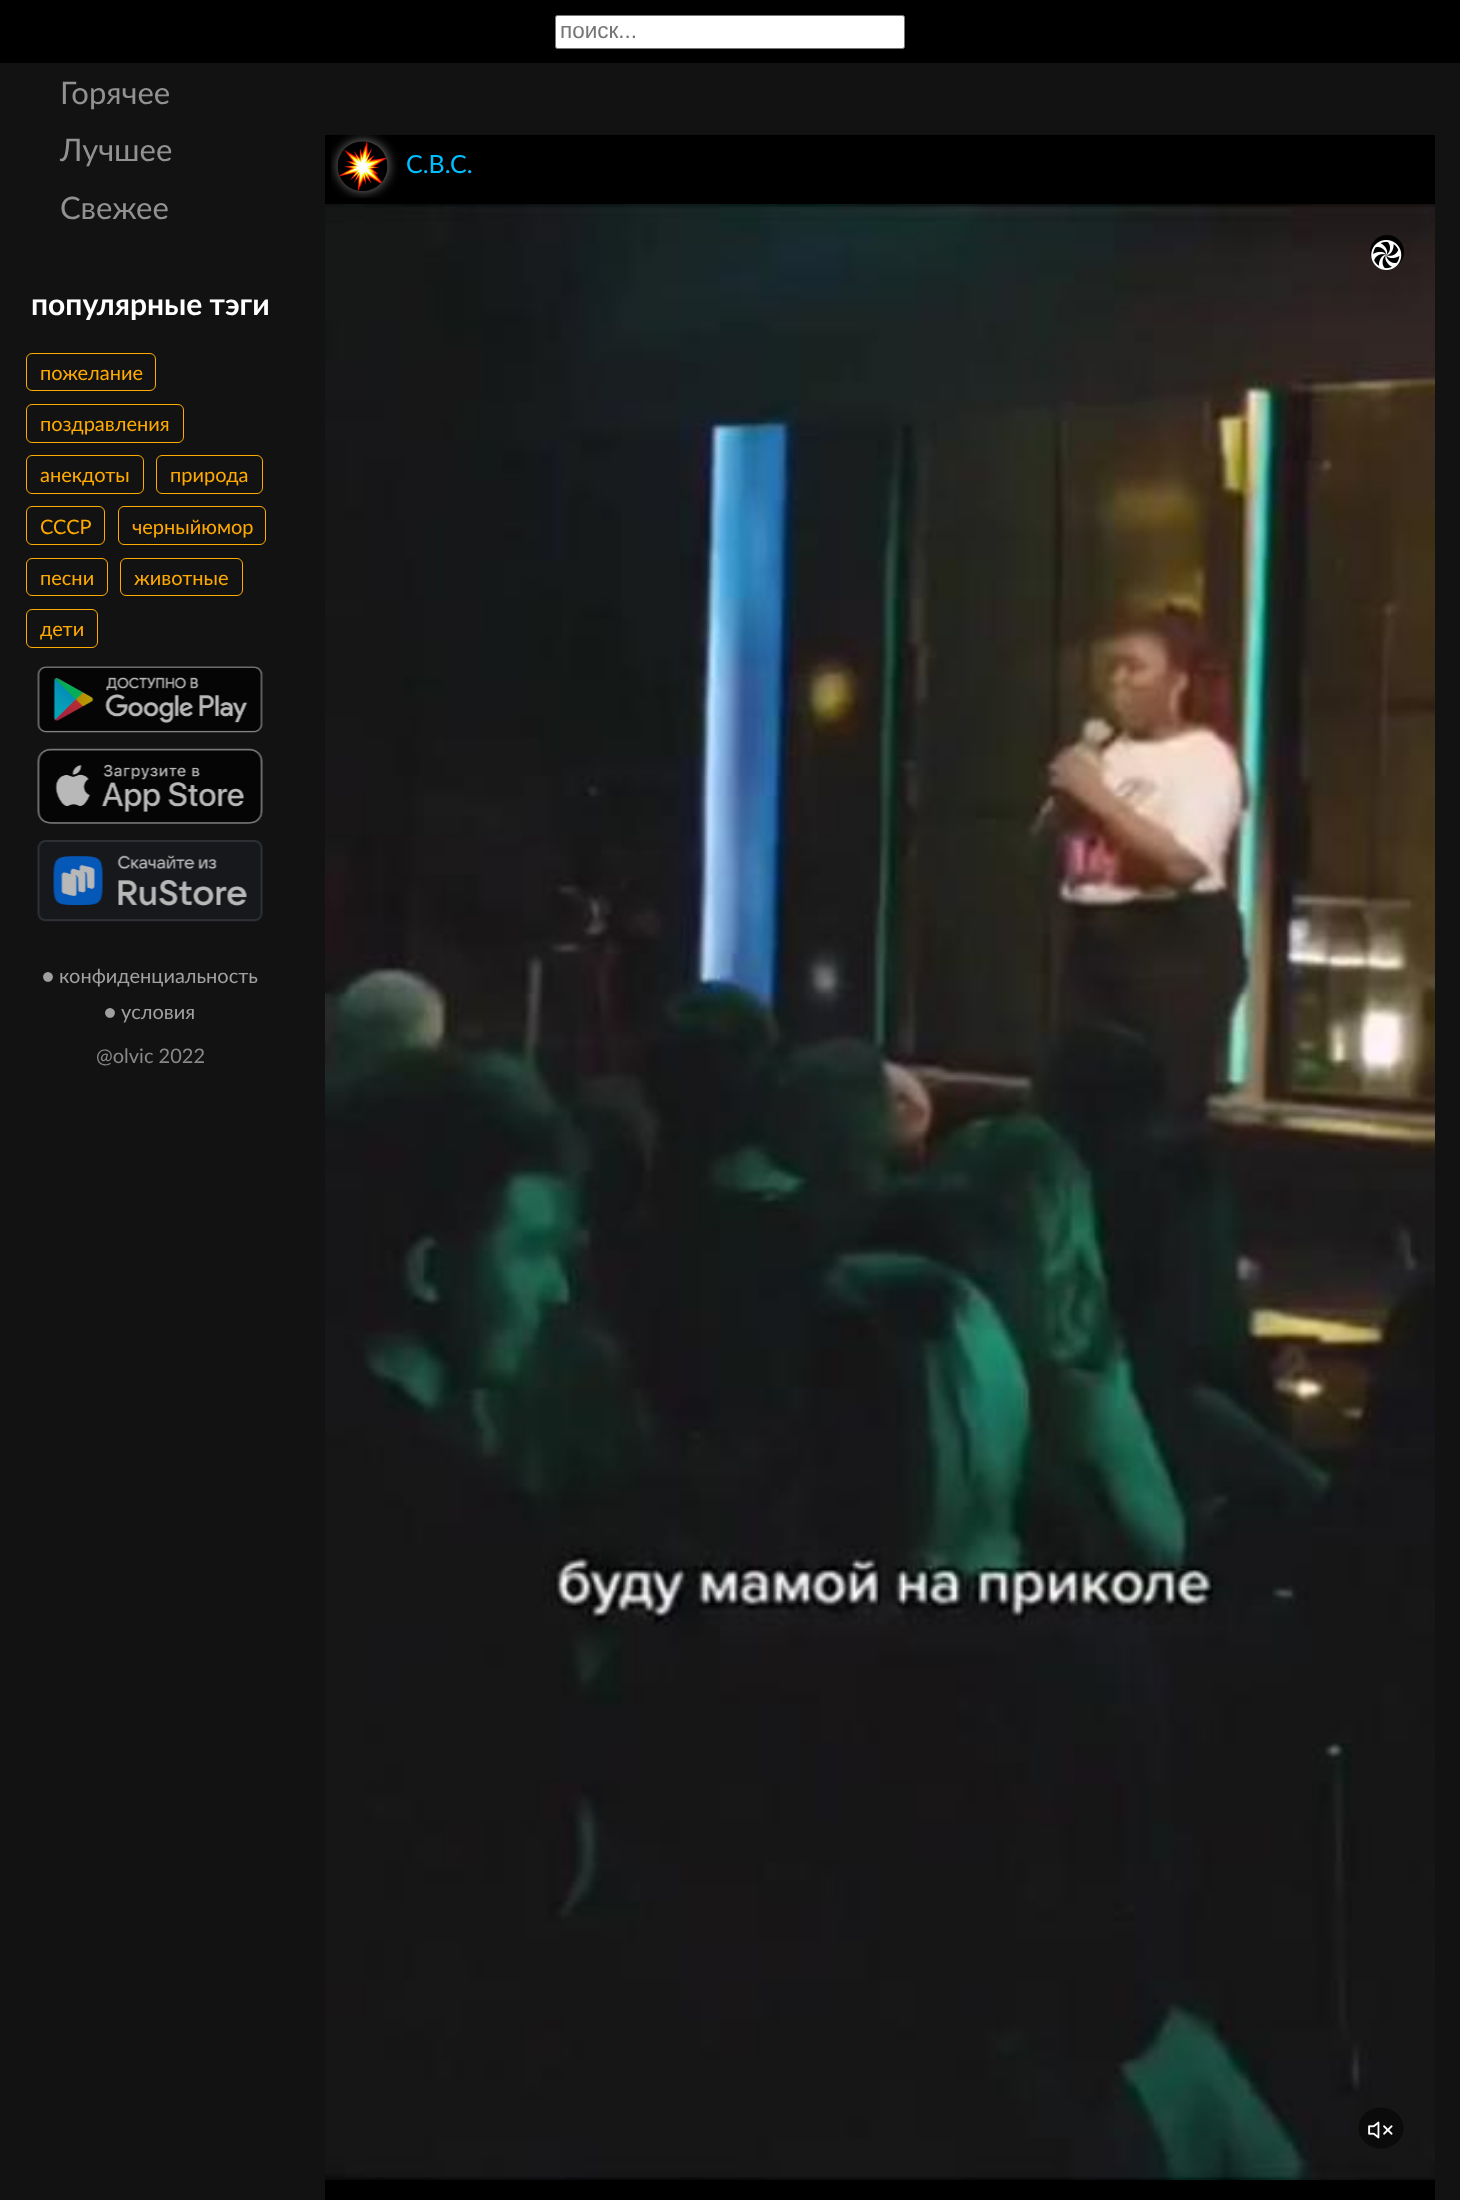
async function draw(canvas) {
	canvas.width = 1460;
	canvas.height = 2200;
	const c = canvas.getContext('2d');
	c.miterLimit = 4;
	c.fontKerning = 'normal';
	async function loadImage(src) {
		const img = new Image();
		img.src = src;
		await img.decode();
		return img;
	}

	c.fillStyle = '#121212';
	c.fillRect(0, 0, 1460, 2200);
	c.fillStyle = '#000';
	c.fillRect(0, 0, 1460, 63);
	c.fillStyle = '#fff';
	c.beginPath();
	c.roundRect(555.5, 15.5, 349, 33, 2);
	c.fill();
	c.strokeStyle = '#767676';
	c.stroke();
	c.font = '22.5px Liberation Sans';
	c.fillStyle = '#757575';
	c.fillText('поиск...', 560, 38);
	c.font = '31px Lato';
	c.fillStyle = '#919191';
	for (const [text, x, y] of [
		['Горячее', 60, 104],
		['Лучшее', 60, 161],
		['Свежее', 60, 219],
	]) {
		c.fillText(text, x, y);
	}
	c.font = 'bold 30px Lato';
	c.fillStyle = '#fff';
	c.fillText('популярные тэги', 31, 315);
	c.beginPath();
	c.roundRect(26.5, 353.5, 129, 37, 5.5);
	c.strokeStyle = '#fa0';
	c.stroke();
	c.font = '20px Lato';
	c.fillStyle = '#fa0';
	c.fillText('пожелание', 40, 380);
	c.beginPath();
	c.roundRect(26.5, 404.5, 157, 38, 5.5);
	c.stroke();
	c.fillText('поздравления', 40, 431);
	c.beginPath();
	c.roundRect(26.5, 455.5, 117, 38, 5.5);
	c.stroke();
	c.fillText('анекдоты', 40, 482);
	c.beginPath();
	c.roundRect(156.5, 455.5, 106, 38, 5.5);
	c.stroke();
	c.fillText('природа', 170, 482);
	c.beginPath();
	c.roundRect(26.5, 506.5, 78, 38, 5.5);
	c.stroke();
	c.fillText('СССР', 40, 534);
	c.beginPath();
	c.roundRect(118.5, 506.5, 147, 38, 5.5);
	c.stroke();
	c.fillText('черныйюмор', 132, 534);
	c.beginPath();
	c.roundRect(26.5, 558.5, 81, 37, 5.5);
	c.stroke();
	c.fillText('песни', 40, 585);
	c.beginPath();
	c.roundRect(120.5, 558.5, 122, 37, 5.5);
	c.stroke();
	c.fillText('животные', 134, 585);
	c.beginPath();
	c.roundRect(26.5, 609.5, 71, 38, 5.5);
	c.stroke();
	c.fillText('дети', 40, 636);
	c.drawImage(await loadImage('img1.png'), 37, 666, 226, 67);
	c.drawImage(await loadImage('img2.png'), 37, 748, 226, 76);
	c.drawImage(await loadImage('img3.png'), 37, 840, 226, 82);
	c.fillStyle = '#a0a0a0';
	c.fillText('● конфиденциальность', 42, 983);
	c.fillText('● условия', 104, 1019);
	c.fillStyle = '#898989';
	c.fillText('@olvic 2022', 96, 1063);
	c.fillStyle = '#000';
	c.fillRect(325, 135, 1110, 2065);
	c.save();
	c.beginPath();
	c.rect(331, 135, 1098, 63);
	c.clip();
	c.fillStyle = '#808080';
	c.filter = 'blur(6px)';
	c.beginPath();
	c.roundRect(338, 141, 50, 50, 25);
	c.fill();
	c.filter = 'none';
	c.restore();
	c.drawImage(await loadImage('img4.png'), 337, 141, 51, 50);
	c.font = '25px Lato';
	c.fillStyle = '#00bfff';
	c.fillText('С.В.С.', 406, 173);
	c.drawImage(await loadImage('img5.png'), 325, 204, 1110, 1976);
	c.fillStyle = '#000';
	c.beginPath();
	c.arc(1387, 252, 17, 0, 2 * Math.PI);
	c.fill();
	c.drawImage(await loadImage('img6.png'), 1371, 240, 31, 30);
	c.fillStyle = '#0b0b0b';
	c.beginPath();
	c.ellipse(1381, 2128, 22.5, 20.5, 0, 0, 2 * Math.PI);
	c.fill();
	c.drawImage(await loadImage('img7.png'), 1368, 2121, 25, 18);
}

draw(document.querySelector('canvas'));
